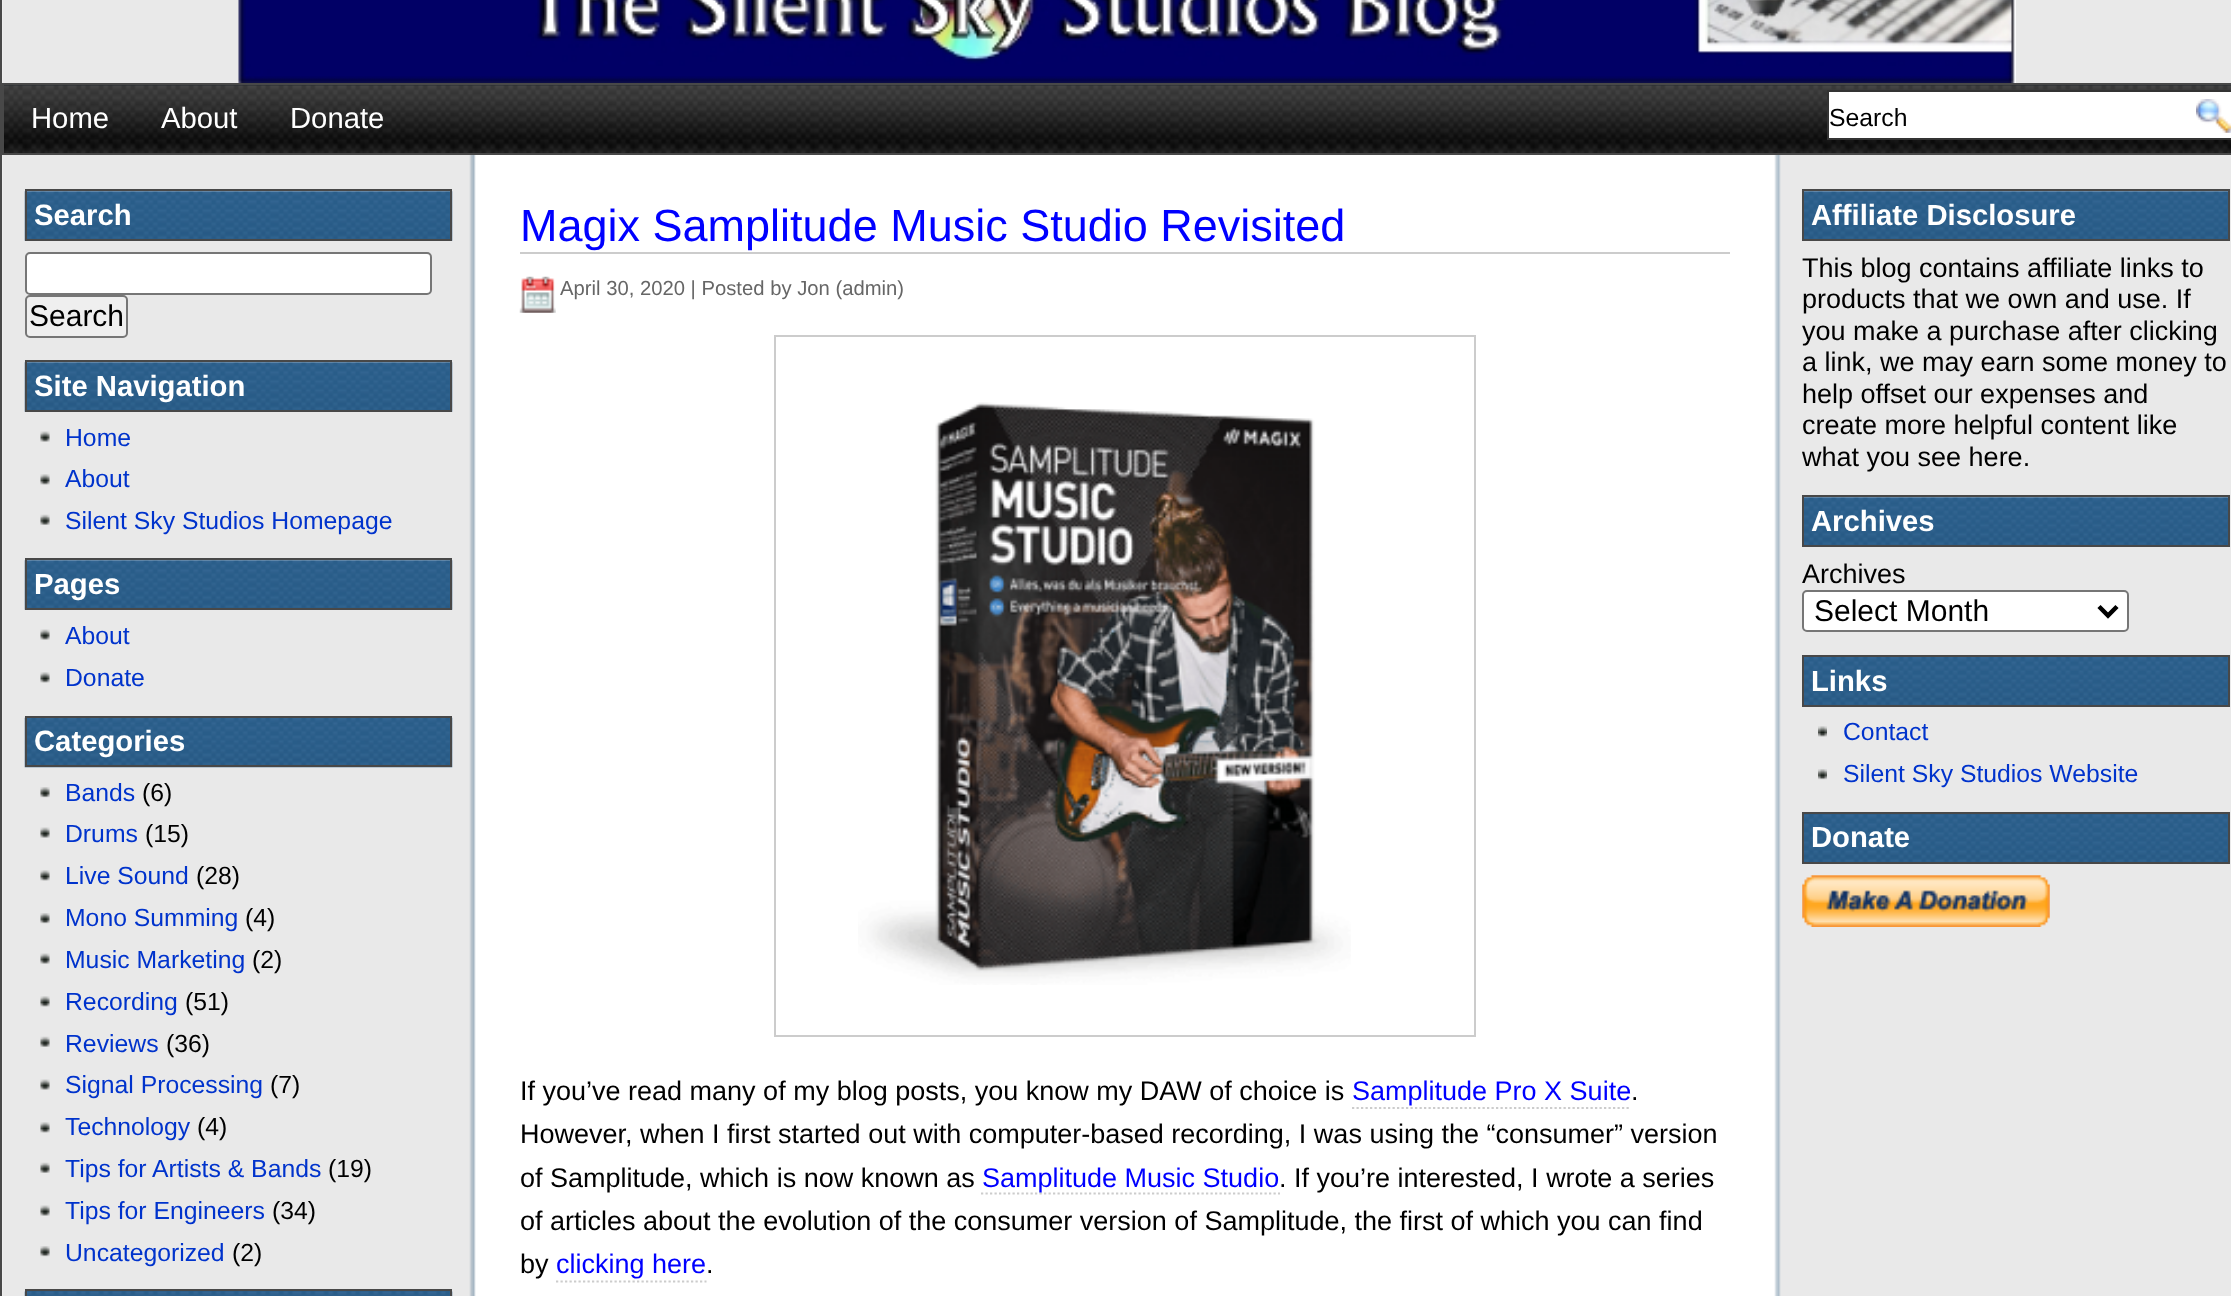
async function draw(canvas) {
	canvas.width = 2231;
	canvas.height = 1296;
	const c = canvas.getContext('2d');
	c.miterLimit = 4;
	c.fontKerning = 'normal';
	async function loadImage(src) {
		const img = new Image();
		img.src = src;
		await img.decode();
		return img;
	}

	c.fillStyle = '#fff';
	c.fillRect(0, 0, 2231, 1296);
	c.drawImage(await loadImage('img1.png'), 2, 0, 2229, 1296);
	c.strokeStyle = '#484848';
	c.lineWidth = 2;
	c.strokeRect(1, -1, 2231, 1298);
	c.drawImage(await loadImage('img2.png'), 238, 0, 1778, 83);
	c.fillStyle = '#272d33';
	c.fillRect(4, 85, 2227, 1);
	c.drawImage(await loadImage('img3.png'), 4, 85, 2227, 68);
	c.strokeRect(3, 84, 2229, 70);
	c.font = '29.25px Liberation Sans';
	c.fillStyle = '#fff';
	for (const [text, x, y] of [
		['Home', 31, 128],
		['About', 161, 128],
		['Donate', 290, 128],
	]) {
		c.fillText(text, x, y);
	}
	c.beginPath();
	c.rect(1828, 91, 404, 48);
	c.fill();
	c.strokeStyle = '#333';
	c.stroke();
	c.font = '24.75px Liberation Sans';
	c.fillStyle = '#000';
	c.fillText('Search', 1829, 126);
	c.drawImage(await loadImage('img4.png'), 2196, 99, 35, 34);
	c.drawImage(await loadImage('img5.png'), 24, 191, 429, 50);
	c.strokeStyle = '#484848';
	c.strokeRect(26, 190, 425, 50);
	c.font = 'bold 29.25px Liberation Sans';
	c.fillStyle = '#fff';
	c.fillText('Search', 34, 225);
	c.beginPath();
	c.roundRect(26, 253, 405, 41, 4);
	c.fill();
	c.strokeStyle = '#767676';
	c.stroke();
	c.fillStyle = '#efefef';
	c.beginPath();
	c.roundRect(26, 296, 101, 41, 4);
	c.fill();
	c.stroke();
	c.font = '30px Liberation Sans';
	c.fillStyle = '#000';
	c.fillText('Search', 29, 326);
	c.drawImage(await loadImage('img6.png'), 24, 362, 429, 50);
	c.strokeStyle = '#484848';
	c.strokeRect(26, 361, 425, 50);
	c.font = 'bold 29.25px Liberation Sans';
	c.fillStyle = '#fff';
	c.fillText('Site Navigation', 34, 396);
	c.drawImage(await loadImage('img7.png'), 40, 431, 10, 11);
	c.font = '24.75px Liberation Sans';
	c.fillStyle = '#03c';
	c.fillText('Home', 65, 446);
	c.drawImage(await loadImage('img8.png'), 40, 474, 10, 11);
	c.fillText('About', 65, 487);
	c.drawImage(await loadImage('img9.png'), 40, 514, 10, 11);
	c.fillText('Silent Sky Studios Homepage', 65, 529);
	c.drawImage(await loadImage('img10.png'), 24, 560, 429, 50);
	c.strokeRect(26, 559, 425, 50);
	c.font = 'bold 29.25px Liberation Sans';
	c.fillStyle = '#fff';
	c.fillText('Pages', 34, 594);
	c.drawImage(await loadImage('img7.png'), 40, 629, 10, 11);
	c.font = '24.75px Liberation Sans';
	c.fillStyle = '#03c';
	c.fillText('About', 65, 644);
	c.drawImage(await loadImage('img8.png'), 40, 672, 10, 11);
	c.fillText('Donate', 65, 686);
	c.drawImage(await loadImage('img11.png'), 24, 717, 429, 51);
	c.strokeRect(26, 717, 425, 49);
	c.font = 'bold 29.25px Liberation Sans';
	c.fillStyle = '#fff';
	c.fillText('Categories', 34, 751);
	c.drawImage(await loadImage('img12.png'), 40, 787, 10, 11);
	c.font = '24.75px Liberation Sans';
	c.fillStyle = '#03c';
	c.fillText('Bands', 65, 801);
	c.fillStyle = '#000';
	c.fillText('(6)', 142, 801);
	c.drawImage(await loadImage('img7.png'), 40, 827, 10, 11);
	c.fillStyle = '#03c';
	c.fillText('Drums', 65, 842);
	c.fillStyle = '#000';
	c.fillText('(15)', 145, 842);
	c.drawImage(await loadImage('img8.png'), 40, 870, 10, 11);
	c.fillStyle = '#03c';
	c.fillText('Live Sound', 65, 884);
	c.fillStyle = '#000';
	c.fillText('(28)', 196, 884);
	c.drawImage(await loadImage('img13.png'), 40, 913, 10, 11);
	c.fillStyle = '#03c';
	c.fillText('Mono Summing', 65, 926);
	c.fillStyle = '#000';
	c.fillText('(4)', 245, 926);
	c.drawImage(await loadImage('img7.png'), 40, 953, 10, 11);
	c.fillStyle = '#03c';
	c.fillText('Music Marketing', 65, 968);
	c.fillStyle = '#000';
	c.fillText('(2)', 252, 968);
	c.drawImage(await loadImage('img8.png'), 40, 996, 10, 11);
	c.fillStyle = '#03c';
	c.fillText('Recording', 65, 1010);
	c.fillStyle = '#000';
	c.fillText('(51)', 185, 1010);
	c.drawImage(await loadImage('img9.png'), 40, 1036, 10, 11);
	c.fillStyle = '#03c';
	c.fillText('Reviews', 65, 1052);
	c.fillStyle = '#000';
	c.fillText('(36)', 166, 1052);
	c.drawImage(await loadImage('img7.png'), 40, 1079, 10, 11);
	c.fillStyle = '#03c';
	c.fillText('Signal Processing', 65, 1093);
	c.fillStyle = '#000';
	c.fillText('(7)', 270, 1093);
	c.drawImage(await loadImage('img8.png'), 40, 1122, 10, 11);
	c.fillStyle = '#03c';
	c.fillText('Technology', 65, 1135);
	c.fillStyle = '#000';
	c.fillText('(4)', 197, 1135);
	c.drawImage(await loadImage('img9.png'), 40, 1162, 10, 11);
	c.fillStyle = '#03c';
	c.fillText('Tips for Artists & Bands', 65, 1177);
	c.fillStyle = '#000';
	c.fillText('(19)', 328, 1177);
	c.drawImage(await loadImage('img7.png'), 40, 1205, 10, 11);
	c.fillStyle = '#03c';
	c.fillText('Tips for Engineers', 65, 1219);
	c.fillStyle = '#000';
	c.fillText('(34)', 272, 1219);
	c.drawImage(await loadImage('img13.png'), 40, 1246, 10, 11);
	c.fillStyle = '#03c';
	c.fillText('Uncategorized', 65, 1261);
	c.fillStyle = '#000';
	c.fillText('(2)', 232, 1261);
	c.fillStyle = '#285b87';
	c.fillRect(25, 1291, 427, 1);
	c.drawImage(await loadImage('img14.png'), 24, 1291, 429, 5);
	c.strokeRect(26, 1290, 425, 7);
	c.fillStyle = '#ccc';
	c.fillRect(520, 252, 1210, 2);
	c.font = '45px Liberation Sans';
	c.fillStyle = '#00f';
	c.fillText('Magix Samplitude Music Studio Revisited', 520, 241);
	c.drawImage(await loadImage('img15.png'), 519, 276, 37, 37);
	c.font = '20.25px Liberation Sans';
	c.fillStyle = '#666';
	c.fillText('April 30, 2020 | Posted by Jon (admin)', 560, 295);
	c.strokeStyle = '#ccc';
	c.strokeRect(775, 336, 700, 700);
	c.drawImage(await loadImage('img16.png'), 858, 402, 493, 583);
	c.font = '27px Liberation Sans';
	c.fillStyle = '#000';
	c.fillText('If you’ve read many of my blog posts, you know my DAW of choice is', 520, 1100);
	c.fillStyle = '#00f';
	c.fillText('Samplitude Pro X Suite', 1352, 1100);
	c.beginPath();
	c.moveTo(1352, 1108);
	c.lineTo(1631, 1108);
	c.lineWidth = 2.2;
	c.setLineDash([2.25, 2.25]);
	c.stroke();
	c.fillStyle = '#000';
	for (const [text, x, y] of [
		['.', 1631, 1100],
		['However, when I first started out with computer-based recording, I was using the “consumer” version', 520, 1143],
		['of Samplitude, which is now known as', 520, 1187],
	]) {
		c.fillText(text, x, y);
	}
	c.beginPath();
	c.moveTo(981, 1193.5);
	c.lineTo(1280, 1193.5);
	c.stroke();
	c.fillStyle = '#00f';
	c.fillText('Samplitude Music Studio', 982, 1187);
	c.fillStyle = '#000';
	for (const [text, x, y] of [
		['. If you’re interested, I wrote a series', 1279, 1187],
		['of articles about the evolution of the consumer version of Samplitude, the first of which you can find', 520, 1230],
		['by', 520, 1273],
	]) {
		c.fillText(text, x, y);
	}
	c.fillStyle = '#00f';
	c.fillText('clicking here', 556, 1273);
	c.beginPath();
	c.moveTo(556, 1281.5);
	c.lineTo(706.5, 1281.5);
	c.stroke();
	c.fillStyle = '#000';
	c.fillText('.', 706, 1273);
	c.drawImage(await loadImage('img17.png'), 1804, 191, 424, 48);
	c.strokeStyle = '#484848';
	c.lineWidth = 2;
	c.setLineDash([]);
	c.strokeRect(1803, 190, 426, 50);
	c.font = 'bold 29.25px Liberation Sans';
	c.fillStyle = '#fff';
	c.fillText('Affiliate Disclosure', 1811, 225);
	c.font = '27px Liberation Sans';
	c.fillStyle = '#000';
	for (const [text, x, y] of [
		['This blog contains affiliate links to', 1802, 277],
		['products that we own and use. If', 1802, 308],
		['you make a purchase after clicking', 1802, 340],
		['a link, we may earn some money to', 1802, 371],
		['help offset our expenses and', 1802, 403],
		['create more helpful content like', 1802, 434],
		['what you see here.', 1802, 466],
	]) {
		c.fillText(text, x, y);
	}
	c.drawImage(await loadImage('img18.png'), 1804, 497, 424, 48);
	c.strokeRect(1803, 496, 426, 50);
	c.font = 'bold 29.25px Liberation Sans';
	c.fillStyle = '#fff';
	c.fillText('Archives', 1811, 531);
	c.font = '27px Liberation Sans';
	c.fillStyle = '#000';
	c.fillText('Archives', 1802, 583);
	c.fillStyle = '#fff';
	c.beginPath();
	c.roundRect(1803, 591, 325, 40, 4);
	c.fill();
	c.strokeStyle = '#767676';
	c.stroke();
	c.beginPath();
	c.moveTo(2099, 606.5);
	c.lineTo(2108, 615.5);
	c.lineTo(2117, 606.5);
	c.strokeStyle = '#000';
	c.lineWidth = 4.5;
	c.stroke();
	c.font = '30px Liberation Sans';
	c.fillStyle = '#000';
	c.fillText('Select Month', 1814, 621);
	c.drawImage(await loadImage('img19.png'), 1804, 657, 424, 48);
	c.strokeStyle = '#484848';
	c.lineWidth = 2;
	c.strokeRect(1803, 656, 426, 50);
	c.font = 'bold 29.25px Liberation Sans';
	c.fillStyle = '#fff';
	c.fillText('Links', 1811, 691);
	c.drawImage(await loadImage('img20.png'), 1818, 726, 9, 11);
	c.font = '24.75px Liberation Sans';
	c.fillStyle = '#03c';
	c.fillText('Contact', 1843, 740);
	c.drawImage(await loadImage('img21.png'), 1818, 769, 9, 11);
	c.fillText('Silent Sky Studios Website', 1843, 782);
	c.fillStyle = '#285b87';
	c.fillRect(1804, 814, 424, 1);
	c.drawImage(await loadImage('img22.png'), 1804, 814, 424, 48);
	c.strokeRect(1803, 813, 426, 50);
	c.font = 'bold 29.25px Liberation Sans';
	c.fillStyle = '#fff';
	c.fillText('Donate', 1811, 847);
	c.drawImage(await loadImage('img23.png'), 1802, 875, 248, 52);
}

draw(document.querySelector('canvas'));
